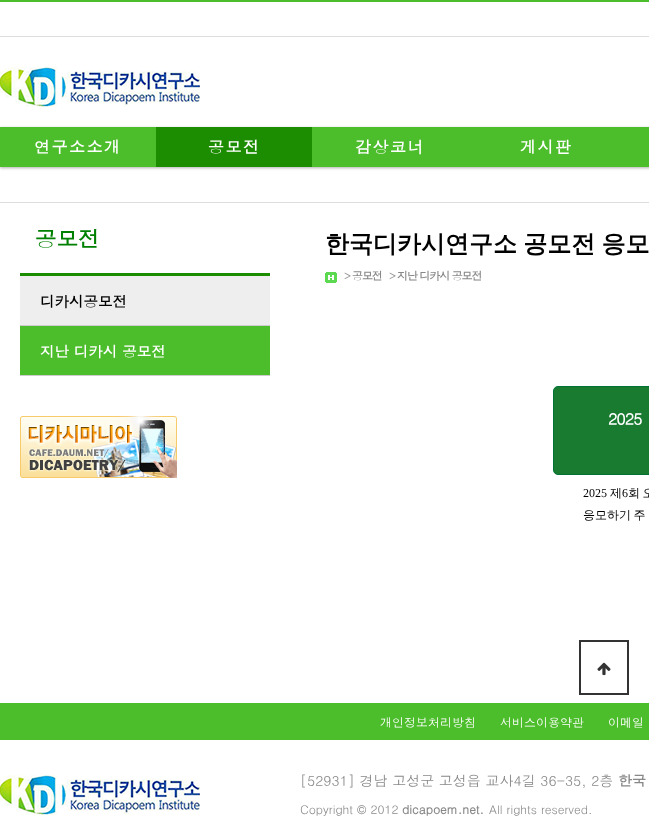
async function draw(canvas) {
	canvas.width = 649;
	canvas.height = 825;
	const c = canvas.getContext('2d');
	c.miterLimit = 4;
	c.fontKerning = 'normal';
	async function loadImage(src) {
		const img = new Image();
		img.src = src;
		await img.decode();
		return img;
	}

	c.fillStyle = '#fff';
	c.fillRect(0, 0, 649, 825);
	c.fillStyle = '#4cbd2b';
	c.fillRect(0, 0, 649, 2);
	c.fillStyle = '#ddd';
	c.fillRect(0, 36, 649, 1);
	c.drawImage(await loadImage('img1.png'), 0, 67, 200, 40);
	c.fillStyle = '#0000004d';
	c.filter = 'blur(1.5px)';
	c.beginPath();
	c.rect(0, 128, 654, 40);
	c.fill();
	c.filter = 'none';
	c.fillStyle = '#4cbd2b';
	c.fillRect(0, 127, 649, 40);
	c.letterSpacing = '1.5px';
	c.font = 'bold 16px Dotum';
	c.fillStyle = '#fff';
	c.fillText('연구소소개', 34, 153);
	c.fillStyle = '#1c8d00';
	c.fillRect(156, 127, 156, 40);
	c.fillStyle = '#fff';
	for (const [text, x, y] of [
		['공모전', 208, 153],
		['감상코너', 355, 153],
		['게시판', 520, 153],
	]) {
		c.fillText(text, x, y);
	}
	c.fillStyle = '#ddd';
	c.fillRect(0, 202, 649, 1);
	c.fillStyle = '#1c8d00';
	c.fillRect(20, 273, 250, 3);
	c.letterSpacing = '0px';
	c.font = 'bold 21.5px Dotum';
	c.fillStyle = '#008000';
	c.fillText('공모전', 35, 247);
	c.fillStyle = '#eee';
	c.fillRect(20, 276, 250, 49);
	c.fillStyle = '#ccc';
	c.fillRect(20, 325, 250, 1);
	c.font = 'bold 14.5px Dotum';
	c.fillStyle = '#000';
	c.fillText('디카시공모전', 40, 307);
	c.fillStyle = '#4cbd2b';
	c.fillRect(20, 326, 250, 49);
	c.fillStyle = '#ccc';
	c.fillRect(20, 375, 250, 1);
	c.fillStyle = '#fff';
	c.fillText('지난 디카시 공모전', 40, 357);
	c.drawImage(await loadImage('img2.png'), 20, 416, 157, 62);
	c.wordSpacing = '-1px';
	c.font = 'bold 24px WenQuanYi Zen Hei';
	c.fillStyle = '#000';
	c.fillText('한국디카시연구소 공모전 응모', 325, 252);
	c.drawImage(await loadImage('img3.png'), 325, 272, 12, 11);
	c.letterSpacing = '-1.1px';
	c.wordSpacing = '0px';
	c.font = 'bold 11px Dotum';
	c.fillStyle = '#9e9e9e';
	c.fillText('>', 344, 280);
	c.fillStyle = '#888';
	c.fillText('공모전', 352, 280);
	c.fillStyle = '#9e9e9e';
	c.fillText('>', 389, 280);
	c.fillStyle = '#888';
	c.fillText('지난 디카시 공모전', 397, 280);
	c.fillStyle = '#197b30';
	c.beginPath();
	c.roundRect(553.5, 386.5, 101, 88, 4.5);
	c.fill();
	c.strokeStyle = '#007236';
	c.stroke();
	c.letterSpacing = '-1px';
	c.font = 'bold 16px Dotum';
	c.fillStyle = '#fff';
	c.fillText('2025', 608, 425);
	c.letterSpacing = '0px';
	c.font = '12px Liberation Serif';
	c.fillStyle = '#000';
	c.fillText('2025', 583, 497);
	c.font = '500 12px WenQuanYi Zen Hei';
	c.fillText('제', 610, 497);
	c.font = '12px Liberation Serif';
	c.fillText('6', 622, 497);
	c.wordSpacing = '-1px';
	c.font = '500 12px WenQuanYi Zen Hei';
	c.fillText('회 오', 628, 497);
	c.fillText('응모하기 주', 583, 519);
	c.strokeStyle = '#333';
	c.lineWidth = 2;
	c.strokeRect(580, 641, 48, 53);
	c.drawImage(await loadImage('img4.png'), 597, 662, 14, 14);
	c.fillStyle = '#4cbd2b';
	c.fillRect(0, 703, 649, 37);
	c.wordSpacing = '0px';
	c.font = '12px Dotum';
	c.fillStyle = '#fff';
	for (const [text, x, y] of [
		['개인정보처리방침', 380, 727],
		['서비스이용약관', 500, 727],
		['이메일', 608, 727],
	]) {
		c.fillText(text, x, y);
	}
	c.drawImage(await loadImage('img1.png'), 0, 775, 200, 40);
	c.font = '14px Dotum';
	c.fillStyle = '#888';
	c.fillText('[52931] 경남 고성군 고성읍 교사4길 36-35, 2층', 300, 786);
	c.font = 'bold 14px Dotum';
	c.fillText('한국', 618, 786);
	c.font = '12px Dotum';
	c.fillText('Copyright © 2012', 300, 814);
	c.font = 'bold 12px Dotum';
	c.fillText('dicapoem.net.', 402, 814);
	c.font = '12px Dotum';
	c.fillText('All rights reserved.', 489, 814);
}

draw(document.querySelector('canvas'));
